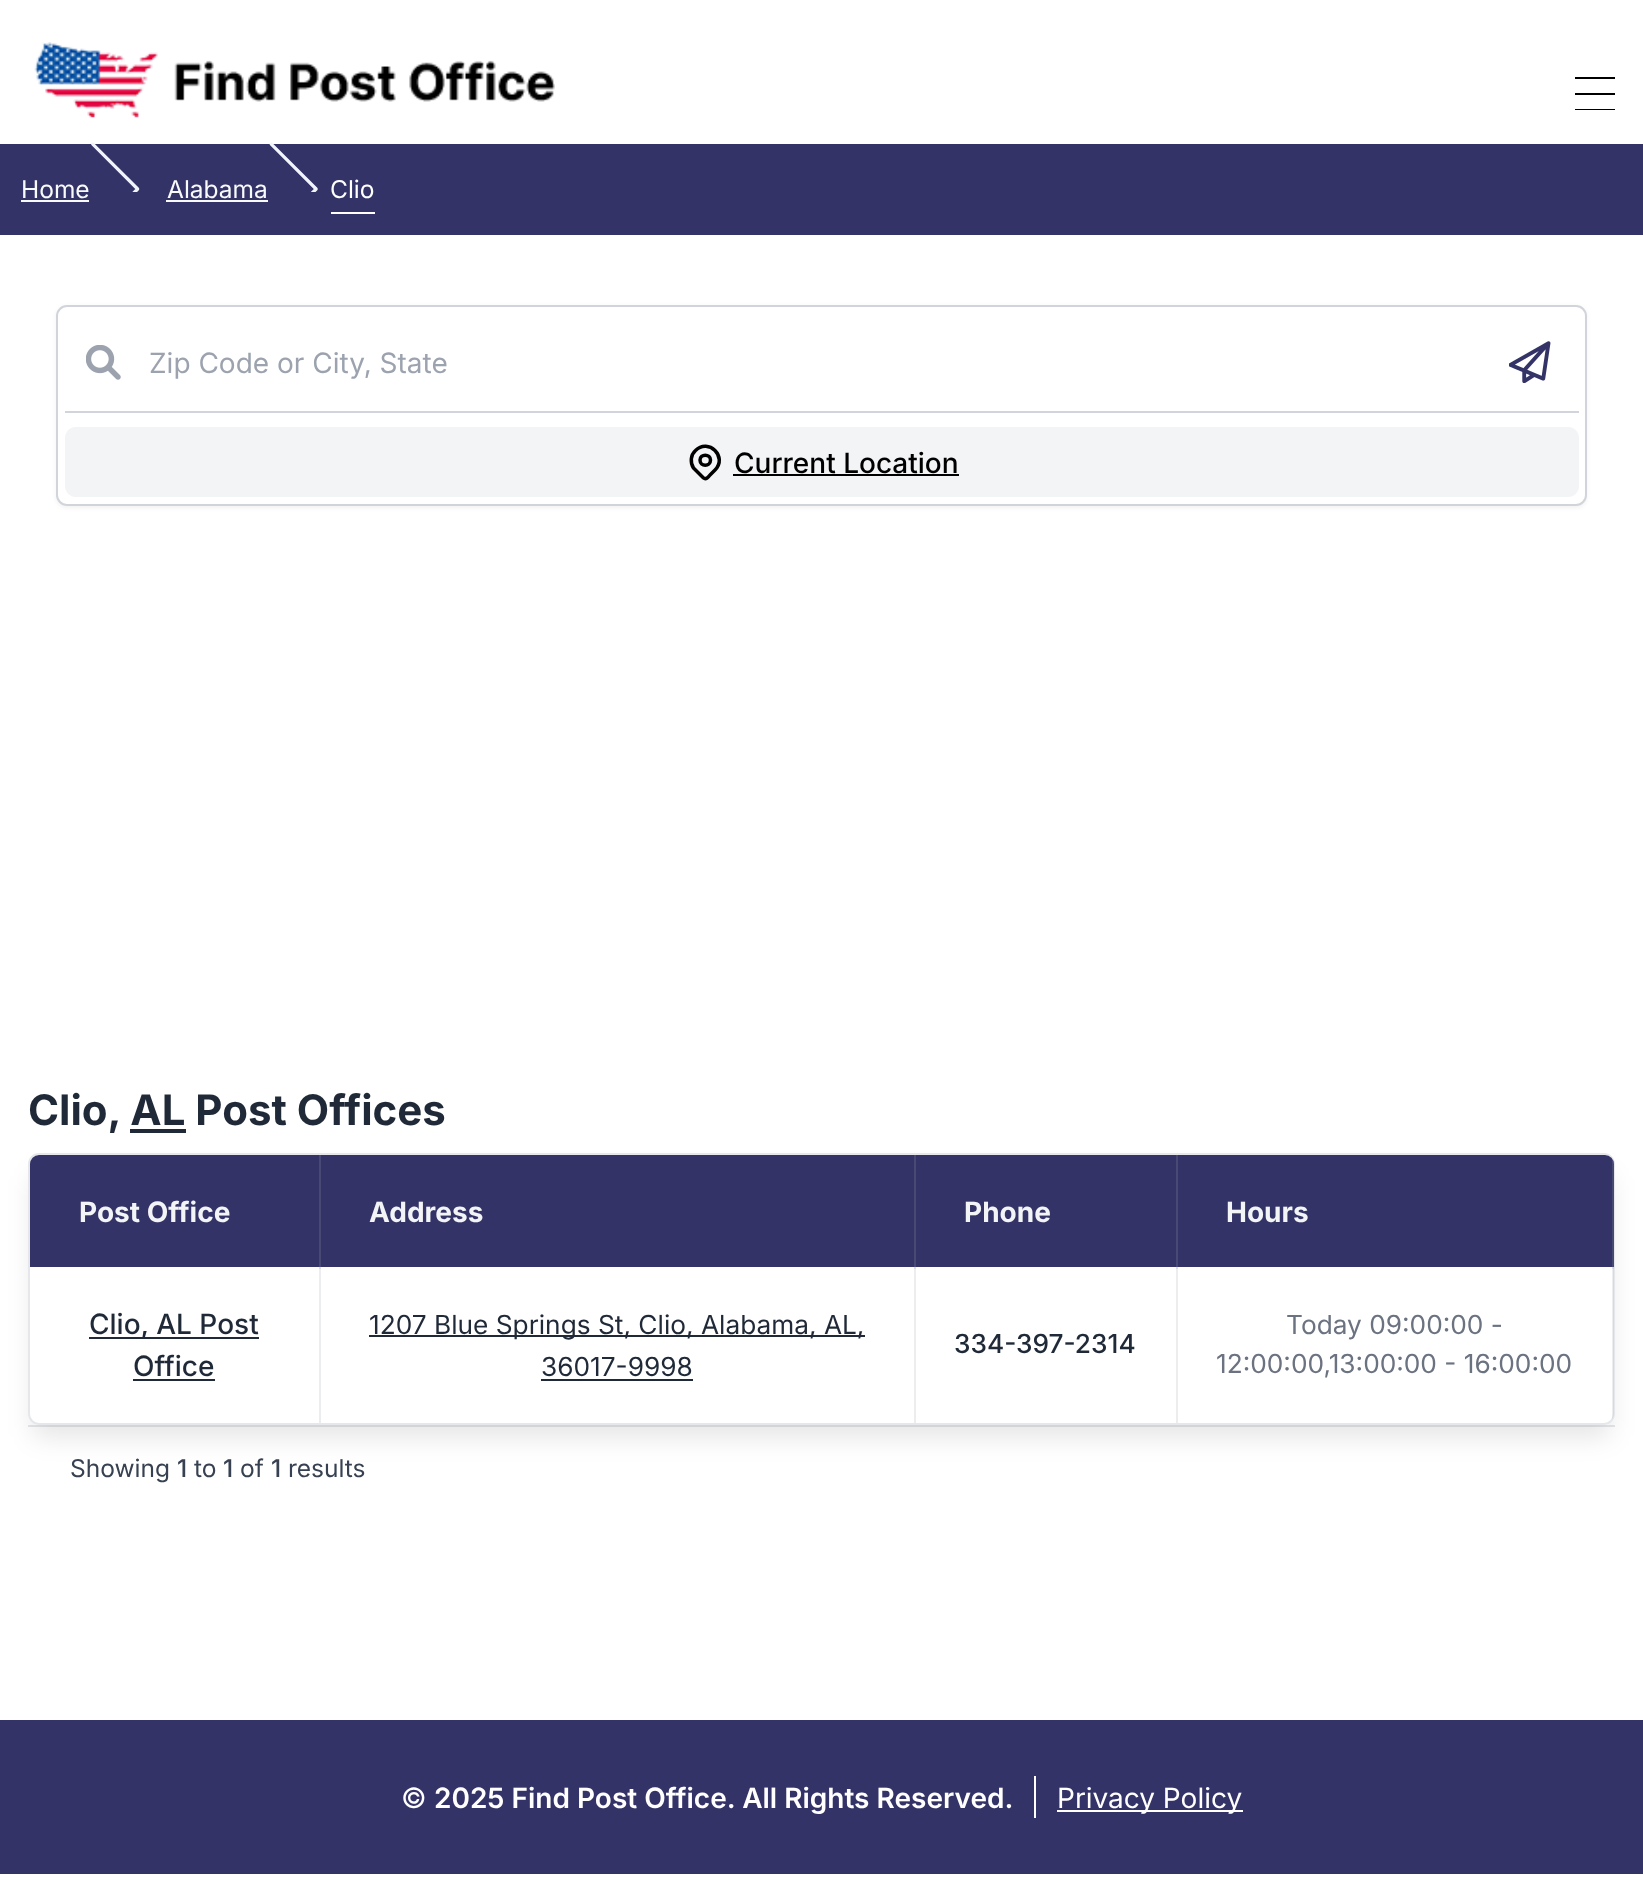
async function draw(canvas) {
	canvas.width = 1643;
	canvas.height = 1880;
	const c = canvas.getContext('2d');
	c.miterLimit = 4;
	c.fontKerning = 'normal';
	async function loadImage(src) {
		const img = new Image();
		img.src = src;
		await img.decode();
		return img;
	}

	c.fillStyle = '#fff';
	c.fillRect(0, 0, 1643, 1880);
	c.drawImage(await loadImage('img1.png'), 34, 42, 521, 76);
	for (const [x, y, w, h, color] of [
		[1575, 77, 40, 2, '#000'],
		[1575, 93, 40, 2, '#000'],
		[1575, 109, 40, 1, '#000'],
		[0, 144, 1643, 91, '#333367'],
	]) {
		c.fillStyle = color;
		c.fillRect(x, y, w, h);
	}
	c.font = '24.5px Inter';
	c.fillStyle = '#f9fafb';
	c.fillText('Home', 21, 198);
	c.fillRect(21, 200, 68, 2);
	c.drawImage(await loadImage('img2.png'), 91, 142, 49, 50);
	c.fillText('Alabama', 167, 198);
	c.fillRect(166, 200, 102, 2);
	c.drawImage(await loadImage('img3.png'), 269, 142, 49, 50);
	c.fillStyle = '#fff';
	c.fillText('Clio', 330, 198);
	c.fillRect(331, 212, 44, 2);
	c.fillStyle = '#0000000d';
	c.filter = 'blur(2px)';
	c.beginPath();
	c.roundRect(56, 306, 1531, 202, 11);
	c.fill();
	c.filter = 'none';
	c.fillStyle = '#fff';
	c.beginPath();
	c.roundRect(57, 306, 1529, 199, 10);
	c.fill();
	c.strokeStyle = '#d1d5db';
	c.lineWidth = 2;
	c.stroke();
	c.fillStyle = '#d1d5db';
	c.fillRect(65, 411, 1514, 2);
	c.drawImage(await loadImage('img4.png'), 86, 345, 35, 35);
	c.font = '28px Inter';
	c.fillStyle = '#9ca3af';
	c.fillText('Zip Code or City, State', 149, 373);
	c.drawImage(await loadImage('img5.png'), 1509, 341, 42, 42);
	c.fillStyle = '#f3f4f6';
	c.beginPath();
	c.roundRect(65, 427, 1514, 70, 11);
	c.fill();
	c.beginPath();
	c.moveTo(715, 470);
	c.lineTo(710, 475);
	c.bezierCurveTo(708.5, 477, 706, 480, 703.5, 478);
	c.lineTo(693.5, 468);
	c.bezierCurveTo(690, 462.5, 690.5, 455, 695.5, 450.5);
	c.bezierCurveTo(708.5, 437.5, 728, 457, 715, 470);
	c.closePath();
	c.moveTo(710.5, 460);
	c.bezierCurveTo(710.5, 467, 700, 467, 700, 460);
	c.bezierCurveTo(700, 453.5, 710.5, 453.5, 710.5, 460);
	c.closePath();
	c.strokeStyle = '#000';
	c.lineWidth = 3.5;
	c.lineCap = 'round';
	c.lineJoin = 'round';
	c.stroke();
	c.font = '500 28px Inter';
	c.fillStyle = '#000';
	c.fillText('Current Location', 734, 473);
	c.fillRect(733, 474, 226, 2);
	c.font = 'bold 42px Inter';
	c.fillStyle = '#1f2937';
	c.fillText('Clio, AL Post Offices', 28, 1125);
	c.fillRect(130, 1129, 56, 4);
	c.fillStyle = '#e5e7eb';
	c.fillRect(28, 1425, 1587, 2);
	c.save();
	c.beginPath();
	c.moveTo(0, 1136);
	c.lineTo(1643, 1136);
	c.lineTo(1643, 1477);
	c.lineTo(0, 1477);
	c.closePath();
	c.moveTo(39, 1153);
	c.lineTo(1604, 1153);
	c.bezierCurveTo(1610, 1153, 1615, 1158, 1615, 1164);
	c.lineTo(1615, 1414);
	c.bezierCurveTo(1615, 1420, 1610, 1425, 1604, 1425);
	c.lineTo(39, 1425);
	c.bezierCurveTo(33, 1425, 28, 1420, 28, 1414);
	c.lineTo(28, 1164);
	c.bezierCurveTo(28, 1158, 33, 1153, 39, 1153);
	c.closePath();
	c.clip('evenodd');
	c.fillStyle = '#0000001a';
	c.filter = 'blur(13px)';
	c.beginPath();
	c.roundRect(33, 1176, 1577, 261, 5);
	c.fill();
	c.filter = 'none';
	c.restore();
	c.beginPath();
	c.roundRect(29, 1154, 1585, 270, 10);
	c.strokeStyle = '#e5e7eb';
	c.lineWidth = 2;
	c.lineJoin = 'miter';
	c.stroke();
	c.fillStyle = '#333367';
	c.beginPath();
	c.roundRect(30, 1155, 1584, 112, [9, 9, 0, 0]);
	c.fill();
	for (const [x, y, w, h, color] of [
		[319, 1155, 2, 112, '#484975'],
		[914, 1155, 2, 112, '#484975'],
		[1176, 1155, 2, 112, '#484975'],
	]) {
		c.fillStyle = color;
		c.fillRect(x, y, w, h);
	}
	c.font = 'bold 28px Inter';
	c.fillStyle = '#f3f4f6';
	for (const [text, x, y] of [
		['Post Office', 79, 1222],
		['Address', 369, 1222],
		['Phone', 964, 1222],
	]) {
		c.fillText(text, x, y);
	}
	c.save();
	c.beginPath();
	c.roundRect(30, 1155, 1584, 268, 9);
	c.clip();
	c.fillStyle = '#9ca3af33';
	c.fillRect(1612, 1267, 2, 156);
	c.fillRect(1612, 1155, 2, 114);
	c.restore();
	c.fillText('Hours', 1226, 1222);
	for (const [x, y, w, h, color] of [
		[319, 1267, 2, 156, '#ebedef'],
		[319, 1267, 2, 2, '#dbdee2'],
		[89, 1337, 170, 2, '#1f2937'],
	]) {
		c.fillStyle = color;
		c.fillRect(x, y, w, h);
	}
	c.font = '500 28px Inter';
	c.fillText('Clio, AL Post', 89, 1334);
	c.fillText('Office', 133, 1376);
	for (const [x, y, w, h, color] of [
		[133, 1379, 82, 2, '#1f2937'],
		[914, 1267, 2, 156, '#ebedef'],
		[914, 1267, 2, 2, '#dbdee2'],
		[369, 1335, 496, 2, '#1f2937'],
	]) {
		c.fillStyle = color;
		c.fillRect(x, y, w, h);
	}
	c.font = '26.25px Inter';
	c.fillText('1207 Blue Springs St, Clio, Alabama, AL,', 369, 1334);
	c.fillText('36017-9998', 541, 1376);
	for (const [x, y, w, h, color] of [
		[541, 1379, 152, 2, '#1f2937'],
		[1176, 1267, 2, 156, '#ebedef'],
		[1176, 1267, 2, 2, '#dbdee2'],
	]) {
		c.fillStyle = color;
		c.fillRect(x, y, w, h);
	}
	c.font = '500 26.25px Inter';
	c.fillStyle = '#1f2937';
	c.fillText('334-397-2314', 954, 1353);
	c.font = '26.25px Inter';
	c.fillStyle = '#6b7280';
	c.fillText('Today 09:00:00 -', 1286, 1334);
	c.fillText('12:00:00,13:00:00 - 16:00:00', 1216, 1373);
	c.font = '24.5px Inter';
	c.fillStyle = '#374151';
	c.fillText('Showing', 70, 1477);
	c.font = '500 24.5px Inter';
	c.fillText('1', 177, 1477);
	c.font = '24.5px Inter';
	c.fillText('to', 194, 1477);
	c.font = '500 24.5px Inter';
	c.fillText('1', 223, 1477);
	c.font = '24.5px Inter';
	c.fillText('of', 240, 1477);
	c.font = '500 24.5px Inter';
	c.fillText('1', 271, 1477);
	c.font = '24.5px Inter';
	c.fillText('results', 288, 1477);
	c.fillStyle = '#333367';
	c.fillRect(0, 1720, 1643, 154);
	c.font = '28px Inter';
	c.fillStyle = '#fff';
	c.fillText('©', 401, 1808);
	c.font = '600 28px Inter';
	c.fillText('2025 Find Post Office. All Rights Reserved.', 434, 1808);
	c.fillRect(1034, 1776, 2, 42);
	c.fillRect(1057, 1810, 186, 2);
	c.font = '28px Inter';
	c.fillText('Privacy Policy', 1057, 1808);
}

draw(document.querySelector('canvas'));
